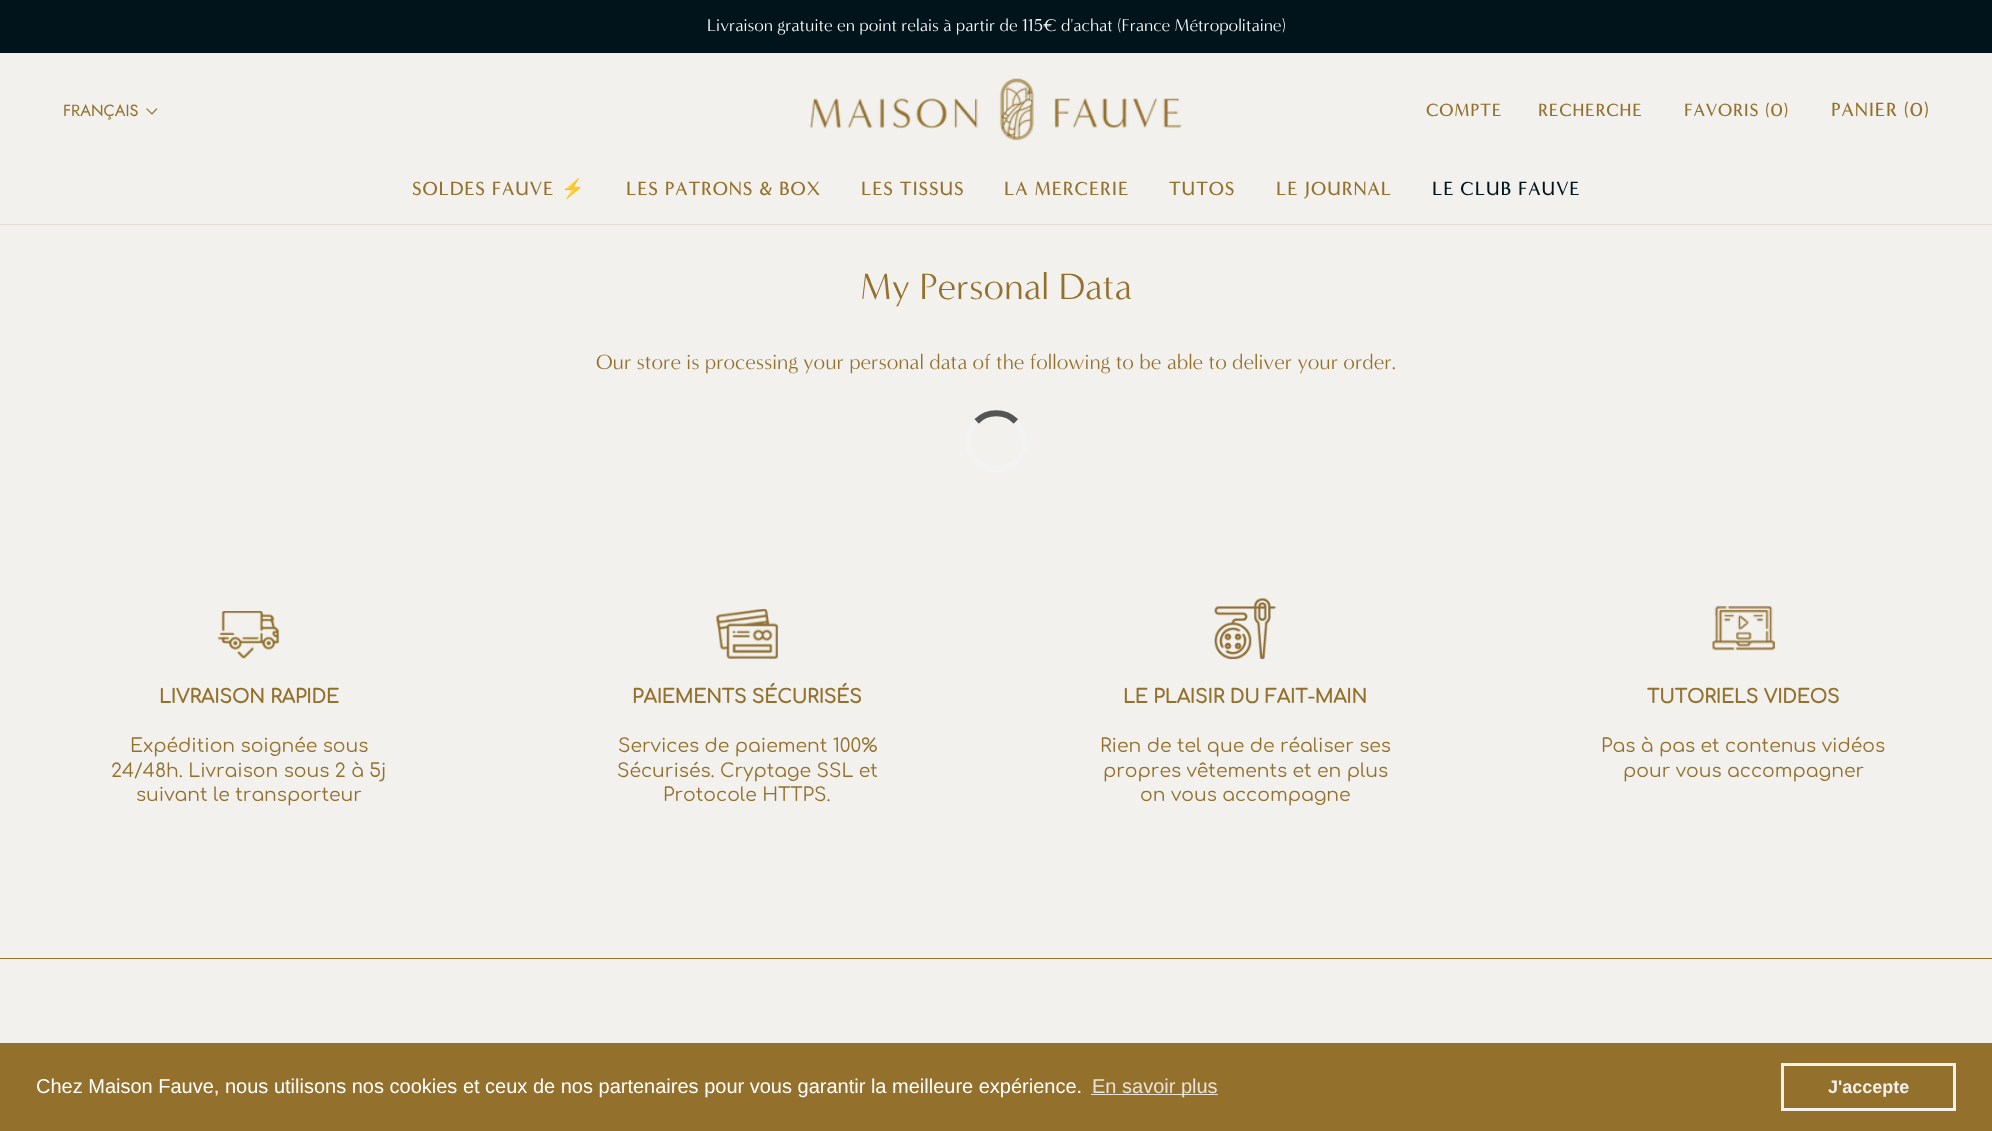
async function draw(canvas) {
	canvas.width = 1992;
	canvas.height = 1131;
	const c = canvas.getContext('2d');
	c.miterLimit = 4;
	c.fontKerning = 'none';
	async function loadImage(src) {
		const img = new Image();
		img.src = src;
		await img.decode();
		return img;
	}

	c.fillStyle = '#f2f1ed';
	c.fillRect(0, 0, 1992, 1131);
	c.fillStyle = '#01141c';
	c.fillRect(0, 0, 1992, 53);
	c.font = '17.5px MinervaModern';
	c.fillStyle = '#fff';
	c.fillText('Livraison gratuite en point relais à partir de 115€ d\'achat (France Métropolitaine)', 707, 31);
	c.fillStyle = '#e4ded0';
	c.fillRect(0, 224, 1992, 1);
	c.drawImage(await loadImage('img1.png'), 810, 78, 372, 63);
	c.letterSpacing = '1.25px';
	c.font = 'bold 17.5px MinervaModern';
	c.fillStyle = '#93702c';
	for (const [text, x, y] of [
		['COMPTE', 1426, 116],
		['RECHERCHE', 1538, 116],
		['FAVORIS', 1684, 116],
		['(0)', 1765, 116],
	]) {
		c.fillText(text, x, y);
	}
	c.letterSpacing = '1.4px';
	c.font = 'bold 18.75px MinervaModern';
	c.fillText('PANIER (0)', 1831, 116);
	c.letterSpacing = '0px';
	c.font = '16.25px Jost';
	c.fillText('FRANÇAIS', 63, 116);
	c.beginPath();
	c.moveTo(156.5, 109);
	c.lineTo(152, 114);
	c.lineTo(147, 109);
	c.strokeStyle = '#93702c';
	c.lineWidth = 1.2;
	c.lineCap = 'square';
	c.stroke();
	c.letterSpacing = '1.4px';
	c.font = 'bold 18.75px MinervaModern';
	c.fillText('SOLDES FAUVE', 412, 195);
	c.font = 'bold 18.75px Noto Color Emoji';
	c.fillText('⚡', 561, 195);
	c.font = 'bold 18.75px MinervaModern';
	for (const [text, x, y] of [
		['LES PATRONS', 626, 195],
		['& BOX', 759, 195],
		['LES TISSUS', 861, 195],
		['LA MERCERIE', 1004, 195],
		['TUTOS', 1169, 195],
		['LE JOURNAL', 1276, 195],
	]) {
		c.fillText(text, x, y);
	}
	c.fillStyle = '#01141c';
	c.fillText('LE CLUB FAUVE', 1432, 195);
	c.letterSpacing = '0px';
	c.font = '37.5px MinervaModern';
	c.fillStyle = '#93702c';
	c.fillText('My Personal Data', 860, 299);
	c.font = '21.25px MinervaModern';
	c.fillText('Our store is processing your personal data of the following to be able to', 596, 369);
	c.fillText('deliver your order.', 1232, 369);
	c.beginPath();
	c.moveTo(976.5, 421.5);
	c.bezierCurveTo(987, 410.5, 1005.5, 410.5, 1016, 421.5);
	c.strokeStyle = '#555';
	c.lineWidth = 6.2;
	c.lineCap = 'butt';
	c.stroke();
	c.beginPath();
	c.moveTo(1016, 421.5);
	c.bezierCurveTo(1022.5, 428, 1025.5, 437.5, 1024, 447);
	c.bezierCurveTo(1017.5, 479.5, 968, 475, 968, 441);
	c.bezierCurveTo(968, 434, 971, 426.5, 976.5, 421.5);
	c.strokeStyle = '#f3f3f3';
	c.stroke();
	c.drawImage(await loadImage('img2.png'), 217, 611, 63, 48);
	c.font = 'bold 18.75px Comfortaa';
	c.fillText('LIVRAISON RAPIDE', 159, 703);
	c.font = '18.75px Comfortaa';
	for (const [text, x, y] of [
		['Expédition soignée sous', 130, 752],
		['24/48h. Livraison sous 2 à 5j', 111, 777],
		['suivant le transporteur', 136, 801],
	]) {
		c.fillText(text, x, y);
	}
	c.drawImage(await loadImage('img3.png'), 716, 609, 62, 51);
	c.font = 'bold 18.75px Comfortaa';
	c.fillText('PAIEMENTS SÉCURISÉS', 632, 703);
	c.font = '18.75px Comfortaa';
	for (const [text, x, y] of [
		['Services de paiement 100%', 618, 752],
		['Sécurisés. Cryptage SSL et', 617, 777],
		['Protocole HTTPS.', 663, 801],
	]) {
		c.fillText(text, x, y);
	}
	c.drawImage(await loadImage('img4.png'), 1214, 598, 63, 62);
	c.font = 'bold 18.75px Comfortaa';
	c.fillText('LE PLAISIR DU FAIT-MAIN', 1123, 703);
	c.font = '18.75px Comfortaa';
	for (const [text, x, y] of [
		['Rien de tel que de réaliser ses', 1100, 752],
		['propres vêtements et en plus', 1103, 777],
		['on vous accompagne', 1140, 801],
	]) {
		c.fillText(text, x, y);
	}
	c.drawImage(await loadImage('img5.png'), 1712, 606, 63, 45);
	c.font = 'bold 18.75px Comfortaa';
	c.fillText('TUTORIELS VIDEOS', 1647, 703);
	c.font = '18.75px Comfortaa';
	c.fillText('Pas à pas et contenus vidéos', 1601, 752);
	c.fillText('pour vous accompagner', 1623, 777);
	c.fillRect(0, 958, 1992, 1);
	c.fillRect(0, 1043, 1992, 88);
	c.font = '20px Liberation Sans';
	c.fillStyle = '#fff';
	c.fillText('Chez Maison Fauve, nous utilisons nos cookies et ceux de nos partenaires pour vous garantir la meilleure expérience.', 36, 1093);
	c.fillStyle = '#e9e2d5';
	c.fillRect(1091, 1094, 127, 1);
	c.fillText('En savoir plus', 1092, 1093);
	c.strokeStyle = '#f2f1ed';
	c.lineWidth = 3;
	c.strokeRect(1782.5, 1064.5, 172, 45);
	c.font = 'bold 18px Liberation Sans';
	c.fillStyle = '#f2f1ed';
	c.fillText('J\'accepte', 1828, 1093);
}

draw(document.querySelector('canvas'));
